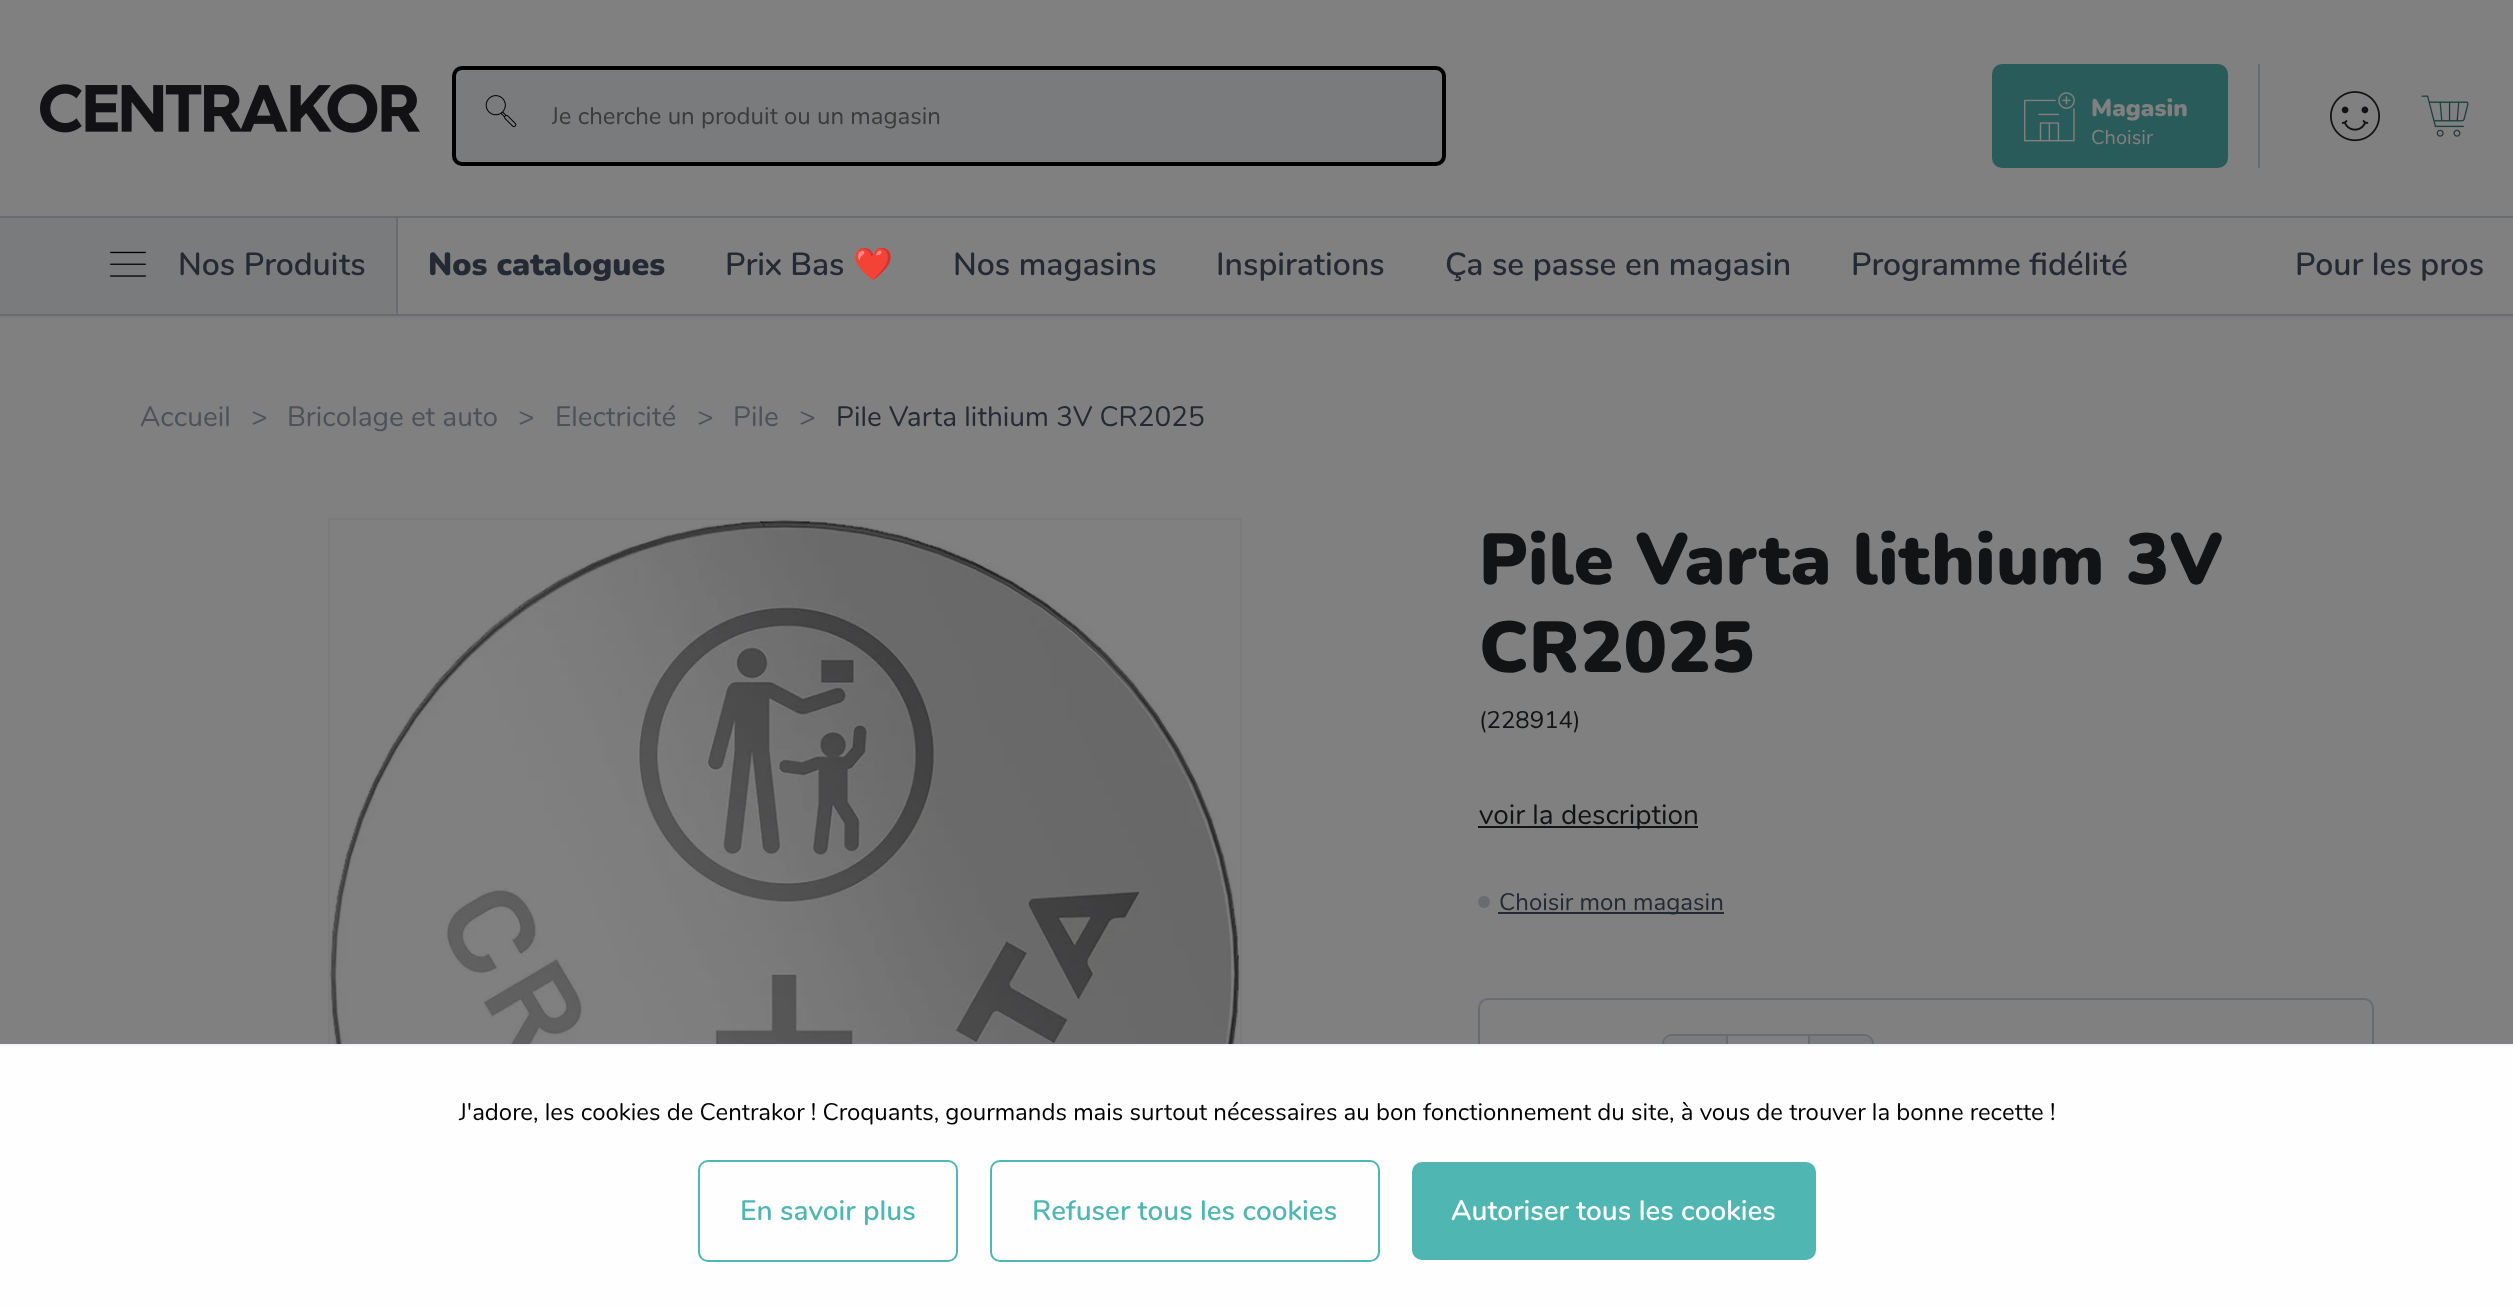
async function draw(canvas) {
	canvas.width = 2513;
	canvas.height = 1309;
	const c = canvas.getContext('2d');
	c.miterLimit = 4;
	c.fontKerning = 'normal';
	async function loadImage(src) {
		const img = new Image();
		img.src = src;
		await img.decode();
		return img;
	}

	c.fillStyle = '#808080';
	c.fillRect(0, 0, 2513, 1309);
	c.fillStyle = '#7a7b7c';
	c.fillRect(0, 316, 2513, 2);
	c.drawImage(await loadImage('img1.png'), 40, 84, 380, 49);
	c.beginPath();
	c.roundRect(454, 68, 990, 96, 8);
	c.fill();
	c.strokeStyle = '#000';
	c.lineWidth = 4;
	c.stroke();
	c.drawImage(await loadImage('img2.png'), 485, 95, 32, 33);
	c.save();
	c.beginPath();
	c.rect(552, 100, 860, 32);
	c.clip();
	c.font = '24px Nunito';
	c.fillStyle = '#3b3b3b';
	c.fillText('Je cherche un produit ou un magasin', 551, 124);
	c.restore();
	c.fillStyle = '#686b6f';
	c.fillRect(2258, 64, 2, 104);
	c.fillStyle = '#285b59';
	c.beginPath();
	c.roundRect(1992, 64, 236, 104, 10);
	c.fill();
	c.drawImage(await loadImage('img3.png'), 2024, 92, 51, 50);
	c.font = '900 24px Nunito';
	c.fillStyle = '#808080';
	c.fillText('Magasin', 2091, 116);
	c.font = '20px Nunito';
	c.fillText('Choisir', 2091, 144);
	c.drawImage(await loadImage('img4.png'), 2330, 91, 50, 51);
	c.drawImage(await loadImage('img5.png'), 2421, 95, 48, 42);
	for (const [x, y, w, h, color] of [
		[0, 216, 2513, 2, '#686b6f'],
		[0, 314, 2513, 2, '#686b6f'],
		[0, 218, 396, 96, '#7a7b7c'],
		[396, 218, 2, 96, '#686b6f'],
	]) {
		c.fillStyle = color;
		c.fillRect(x, y, w, h);
	}
	c.drawImage(await loadImage('img6.png'), 110, 251, 36, 26);
	c.font = '600 32px Nunito';
	c.fillStyle = '#242a34';
	c.fillText('Nos Produits', 178, 275);
	c.font = '900 32px Nunito';
	c.fillText('Nos catalogues', 428, 275);
	c.font = '600 32px Nunito';
	c.fillText('Prix Bas', 725, 275);
	c.font = '32px Noto Color Emoji';
	c.fillText('❤️️', 853, 275);
	c.font = '600 32px Nunito';
	for (const [text, x, y] of [
		['Nos magasins', 953, 275],
		['Inspirations', 1216, 275],
		['Ça se passe en magasin', 1445, 275],
		['Programme fidélité', 1851, 275],
		['Pour les pros', 2295, 275],
	]) {
		c.fillText(text, x, y);
	}
	c.font = '28px Nunito';
	c.fillStyle = '#4c515a';
	for (const [text, x, y] of [
		['Accueil', 140, 426],
		['>', 251, 426],
		['Bricolage et auto', 287, 426],
		['>', 518, 426],
		['Electricité', 555, 426],
		['>', 697, 426],
		['Pile', 733, 426],
		['>', 799, 426],
	]) {
		c.fillText(text, x, y);
	}
	c.fillStyle = '#242a34';
	c.fillText('Pile Varta lithium 3V CR2025', 836, 426);
	c.strokeStyle = '#7a7b7c';
	c.lineWidth = 2;
	c.strokeRect(329, 519, 912, 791);
	c.drawImage(await loadImage('img7.png'), 330, 520, 910, 524);
	c.letterSpacing = '0.4px';
	c.font = '900 72px Nunito';
	c.fillStyle = '#121315';
	c.fillText('Pile Varta lithium 3V', 1479, 584);
	c.fillText('CR2025', 1479, 672);
	c.letterSpacing = '0px';
	c.font = '24px Nunito';
	c.fillText('(228914)', 1479, 728);
	c.fillRect(1478, 826, 220, 2);
	c.font = '28px Nunito';
	c.fillText('voir la description', 1479, 824);
	c.fillStyle = '#686b6f';
	c.beginPath();
	c.arc(1484, 902, 6, 0, 2 * Math.PI);
	c.fill();
	c.fillStyle = '#242a34';
	c.fillRect(1498, 912, 226, 2);
	c.font = '24px Nunito';
	c.fillText('Choisir mon magasin', 1499, 910);
	c.beginPath();
	c.roundRect(1479, 999, 894, 134, [9, 9, 0, 0]);
	c.strokeStyle = '#686b6f';
	c.stroke();
	c.beginPath();
	c.roundRect(1663, 1035, 210, 62, 9);
	c.stroke();
	c.fillStyle = '#7a7b7c';
	c.beginPath();
	c.roundRect(1664, 1036, 64, 60, [8, 0, 0, 8]);
	c.fill();
	c.fillStyle = '#686b6f';
	c.fillRect(1726, 1036, 2, 8);
	c.fillStyle = '#7a7b7c';
	c.beginPath();
	c.roundRect(1808, 1036, 64, 60, [0, 8, 8, 0]);
	c.fill();
	for (const [x, y, w, h, color] of [
		[1808, 1036, 2, 8, '#686b6f'],
		[0, 1046, 2513, 263, '#fefefe'],
		[0, 1044, 2513, 2, '#f4f5f8'],
	]) {
		c.fillStyle = color;
		c.fillRect(x, y, w, h);
	}
	c.fillStyle = '#000';
	c.fillText('J\'adore, les cookies de Centrakor ! Croquants, gourmands mais surtout nécessaires au bon fonctionnement du site, à vous de trouver la bonne recette !', 459, 1120);
	c.beginPath();
	c.roundRect(699, 1161, 258, 100, 9);
	c.strokeStyle = '#50b6b2';
	c.stroke();
	c.font = '600 28px Nunito';
	c.fillStyle = '#50b6b2';
	c.fillText('En savoir plus', 740, 1220);
	c.beginPath();
	c.roundRect(991, 1161, 388, 100, 9);
	c.stroke();
	c.fillText('Refuser tous les cookies', 1032, 1220);
	c.beginPath();
	c.roundRect(1412, 1162, 404, 98, 10);
	c.fill();
	c.fillStyle = '#fff';
	c.fillText('Autoriser tous les cookies', 1451, 1220);
}

draw(document.querySelector('canvas'));
